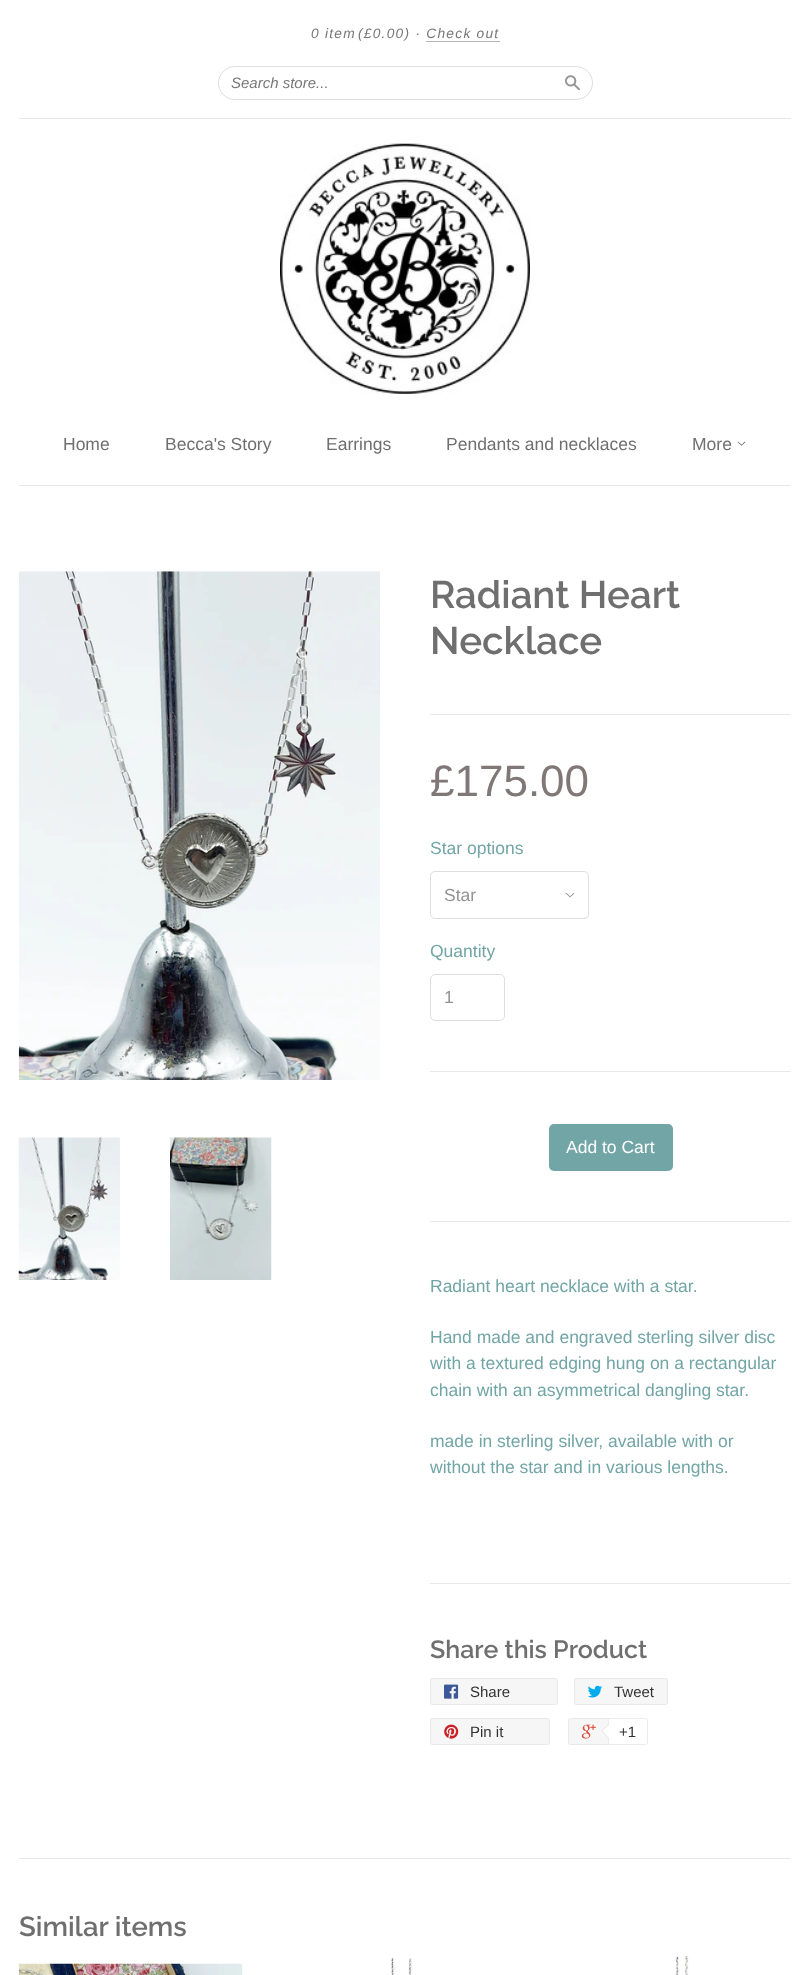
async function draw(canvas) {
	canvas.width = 809;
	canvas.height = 1975;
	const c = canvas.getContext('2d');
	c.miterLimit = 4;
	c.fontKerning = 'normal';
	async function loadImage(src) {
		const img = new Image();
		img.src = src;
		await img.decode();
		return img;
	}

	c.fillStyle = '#fff';
	c.fillRect(0, 0, 809, 1975);
	c.fillStyle = '#e8e8e8';
	c.fillRect(19, 485, 772, 1);
	c.fillRect(19, 118, 772, 1);
	c.letterSpacing = '1.25px';
	c.font = 'italic 13.75px Liberation Sans';
	c.fillStyle = '#777';
	c.fillText('0 item', 311, 38);
	c.fillText('(£0.00) · Check out', 358, 38);
	c.fillStyle = '#b5b5b5';
	c.fillRect(426, 41, 74, 1);
	c.beginPath();
	c.roundRect(218.5, 66.5, 374, 33, 16.5);
	c.strokeStyle = '#dedede';
	c.stroke();
	c.letterSpacing = '0px';
	c.font = 'italic 15px Liberation Sans';
	c.fillStyle = '#777';
	c.fillText('Search store...', 231, 88);
	c.drawImage(await loadImage('img1.png'), 565, 75, 15, 16);
	c.drawImage(await loadImage('img2.png'), 280, 143, 250, 251);
	c.font = '17.5px Liberation Sans';
	c.fillStyle = '#6f6f6f';
	for (const [text, x, y] of [
		['Home', 63, 450],
		['Becca\'s Story', 165, 450],
		['Earrings', 326, 450],
		['Pendants and necklaces', 446, 450],
		['More', 692, 450],
	]) {
		c.fillText(text, x, y);
	}
	c.drawImage(await loadImage('img3.png'), 737, 441, 9, 5);
	c.drawImage(await loadImage('img4.png'), 18, 571, 362, 509);
	c.drawImage(await loadImage('img5.png'), 18, 1137, 102, 143);
	c.drawImage(await loadImage('img6.png'), 170, 1137, 102, 143);
	c.font = '100 38.5px Raleway';
	c.fillText('Radiant Heart', 430, 608);
	c.fillText('Necklace', 430, 654);
	c.fillStyle = '#e8e8e8';
	c.fillRect(430, 714, 361, 1);
	c.font = '44px Liberation Sans';
	c.fillStyle = '#807777';
	c.fillText('£175.00', 430, 796);
	c.font = '17.5px Liberation Sans';
	c.fillStyle = '#72a5a6';
	c.fillText('Star options', 430, 854);
	c.drawImage(await loadImage('img7.png'), 565, 893, 10, 5);
	c.beginPath();
	c.roundRect(430.5, 871.5, 158, 47, 4.5);
	c.stroke();
	c.fillStyle = '#959292';
	c.fillText('Star', 444, 901);
	c.fillStyle = '#72a5a6';
	c.fillText('Quantity', 430, 957);
	c.beginPath();
	c.roundRect(430.5, 974.5, 74, 46, 4.5);
	c.stroke();
	c.fillStyle = '#959292';
	c.fillText('1', 444, 1003);
	c.fillStyle = '#e8e8e8';
	c.fillRect(430, 1071, 361, 1);
	c.fillStyle = '#72a5a6';
	c.beginPath();
	c.roundRect(549, 1124, 124, 47, 5);
	c.fill();
	c.fillStyle = '#fff';
	c.fillText('Add to Cart', 566, 1153);
	c.fillStyle = '#e8e8e8';
	c.fillRect(430, 1221, 361, 1);
	c.fillStyle = '#72a5a6';
	for (const [text, x, y] of [
		['Radiant heart necklace with a star.', 430, 1292],
		['Hand made and engraved sterling silver disc', 430, 1343],
		['with a textured edging hung on a rectangular', 430, 1369],
		['chain with an asymmetrical dangling star.', 430, 1396],
		['made in sterling silver, available with or', 430, 1447],
		['without the star and in various lengths.', 430, 1473],
	]) {
		c.fillText(text, x, y);
	}
	c.fillStyle = '#e8e8e8';
	c.fillRect(430, 1583, 361, 1);
	c.font = '100 25px Raleway';
	c.fillStyle = '#6f6f6f';
	c.fillText('Share this Product', 430, 1658);
	c.fillStyle = '#f6f6f6';
	c.beginPath();
	c.roundRect(430.5, 1678.5, 127, 26, 2);
	c.fill();
	c.strokeStyle = '#e9e9e9';
	c.stroke();
	c.drawImage(await loadImage('img8.png'), 444, 1684, 15, 15);
	c.font = '15px Liberation Sans';
	c.fillStyle = '#333';
	c.fillText('Share', 470, 1697);
	c.fillStyle = '#f6f6f6';
	c.beginPath();
	c.roundRect(574.5, 1678.5, 93, 26, 2);
	c.fill();
	c.stroke();
	c.drawImage(await loadImage('img9.png'), 588, 1685, 14, 13);
	c.fillStyle = '#333';
	c.fillText('Tweet', 614, 1697);
	c.fillStyle = '#f6f6f6';
	c.beginPath();
	c.roundRect(430.5, 1718.5, 119, 26, 2);
	c.fill();
	c.stroke();
	c.drawImage(await loadImage('img10.png'), 444, 1724, 15, 15);
	c.fillStyle = '#333';
	c.fillText('Pin it', 470, 1737);
	c.fillStyle = '#f6f6f6';
	c.beginPath();
	c.roundRect(568.5, 1718.5, 77, 26, 2);
	c.fill();
	c.stroke();
	c.drawImage(await loadImage('img11.png'), 581, 1724, 15, 15);
	c.fillStyle = '#fff';
	c.beginPath();
	c.roundRect(608.5, 1718.5, 39, 26, [0, 2, 2, 0]);
	c.fill();
	c.strokeStyle = '#ececec';
	c.stroke();
	c.fillStyle = '#e9e9e9';
	c.beginPath();
	c.moveTo(609, 1724);
	c.lineTo(609, 1739);
	c.lineTo(601, 1731);
	c.closePath();
	c.fill();
	c.fillStyle = '#fff';
	c.beginPath();
	c.moveTo(610, 1724);
	c.lineTo(610, 1739);
	c.lineTo(602.5, 1731);
	c.closePath();
	c.fill();
	c.fillStyle = '#333';
	c.fillText('+1', 619, 1737);
	c.fillStyle = '#e8e8e8';
	c.fillRect(19, 1858, 772, 1);
	c.font = '100 27.5px Raleway';
	c.fillStyle = '#6f6f6f';
	c.fillText('Similar items', 19, 1936);
	c.drawImage(await loadImage('img12.png'), 18, 1963, 225, 12);
	c.drawImage(await loadImage('img13.png'), 390, 1958, 22, 17);
	c.drawImage(await loadImage('img14.png'), 675, 1956, 14, 19);
}

draw(document.querySelector('canvas'));
